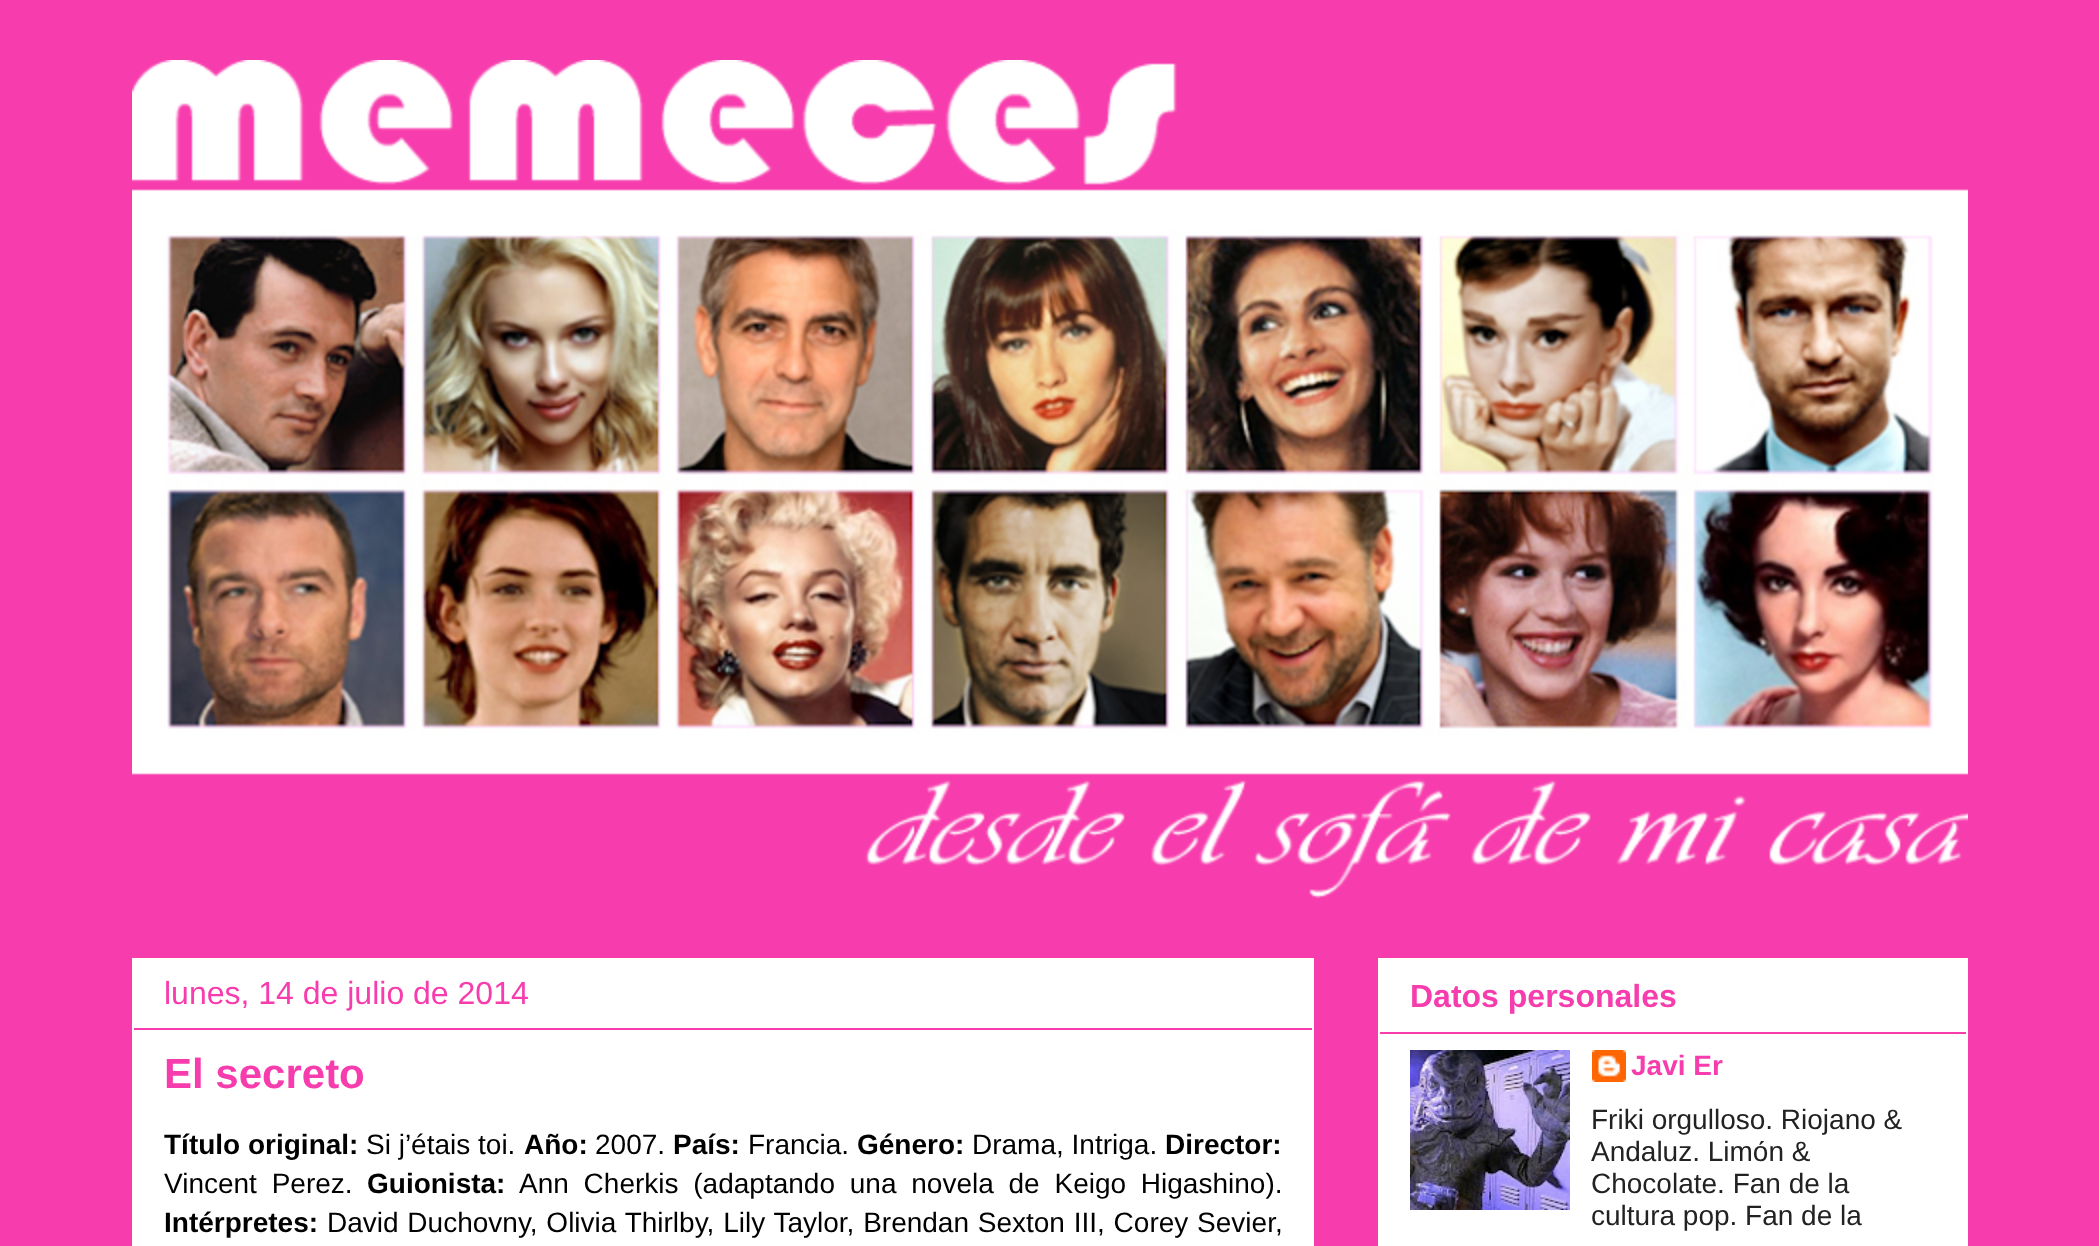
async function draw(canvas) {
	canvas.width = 2099;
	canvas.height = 1246;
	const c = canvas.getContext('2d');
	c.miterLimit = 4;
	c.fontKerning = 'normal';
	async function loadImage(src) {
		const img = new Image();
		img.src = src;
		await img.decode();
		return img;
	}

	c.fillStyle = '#f73dad';
	c.fillRect(0, 0, 2099, 1246);
	c.drawImage(await loadImage('img1.png'), 132, 60, 1836, 838);
	c.fillStyle = '#fff';
	c.fillRect(132, 958, 1182, 288);
	c.fillStyle = '#f73dad';
	c.fillRect(134, 1028, 1178, 2);
	c.font = '32px Liberation Sans';
	c.fillText('lunes, 14 de julio de 2014', 164, 1004);
	c.font = 'bold 42px Liberation Sans';
	c.fillText('El secreto', 164, 1088);
	c.font = 'bold 28px Liberation Sans';
	c.fillStyle = '#000';
	c.fillText('Título original:', 164, 1154);
	c.font = '28px Liberation Sans';
	c.fillText('Si j’étais toi.', 366, 1154);
	c.font = 'bold 28px Liberation Sans';
	c.fillText('Año:', 524, 1154);
	c.font = '28px Liberation Sans';
	c.fillText('2007.', 595, 1154);
	c.font = 'bold 28px Liberation Sans';
	c.fillText('País:', 673, 1154);
	c.font = '28px Liberation Sans';
	c.fillText('Francia.', 748, 1154);
	c.font = 'bold 28px Liberation Sans';
	c.fillText('Género:', 857, 1154);
	c.font = '28px Liberation Sans';
	c.fillText('Drama, Intriga.', 972, 1154);
	c.font = 'bold 28px Liberation Sans';
	c.fillText('Director:', 1165, 1154);
	c.wordSpacing = '7px';
	c.font = '28px Liberation Sans';
	c.fillText('Vincent Perez.', 164, 1193);
	c.wordSpacing = '0px';
	c.font = 'bold 28px Liberation Sans';
	c.fillText('Guionista:', 367, 1193);
	c.wordSpacing = '7px';
	c.font = '28px Liberation Sans';
	c.fillText('Ann Cherkis (adaptando una novela de Keigo Higashino).', 519, 1193);
	c.wordSpacing = '0px';
	c.font = 'bold 28px Liberation Sans';
	c.fillText('Intérpretes:', 164, 1232);
	c.wordSpacing = '1px';
	c.font = '28px Liberation Sans';
	c.fillText('David Duchovny, Olivia Thirlby, Lily Taylor, Brendan Sexton III, Corey Sevier,', 327, 1232);
	c.fillStyle = '#fff';
	c.fillRect(1378, 958, 590, 288);
	c.fillStyle = '#f73dad';
	c.fillRect(1380, 1032, 586, 2);
	c.wordSpacing = '0px';
	c.font = 'bold 32px Liberation Sans';
	c.fillText('Datos personales', 1410, 1007);
	c.drawImage(await loadImage('img2.png'), 1410, 1050, 160, 160);
	c.drawImage(await loadImage('img3.png'), 1592, 1050, 34, 32);
	c.font = 'bold 28px Liberation Sans';
	c.fillText('Javi Er', 1631, 1075);
	c.font = '28px Liberation Sans';
	c.fillStyle = '#222';
	for (const [text, x, y] of [
		['Friki orgulloso. Riojano &', 1591, 1129],
		['Andaluz. Limón &', 1591, 1161],
		['Chocolate. Fan de la', 1591, 1193],
		['cultura pop. Fan de la', 1591, 1225],
	]) {
		c.fillText(text, x, y);
	}
}

draw(document.querySelector('canvas'));
